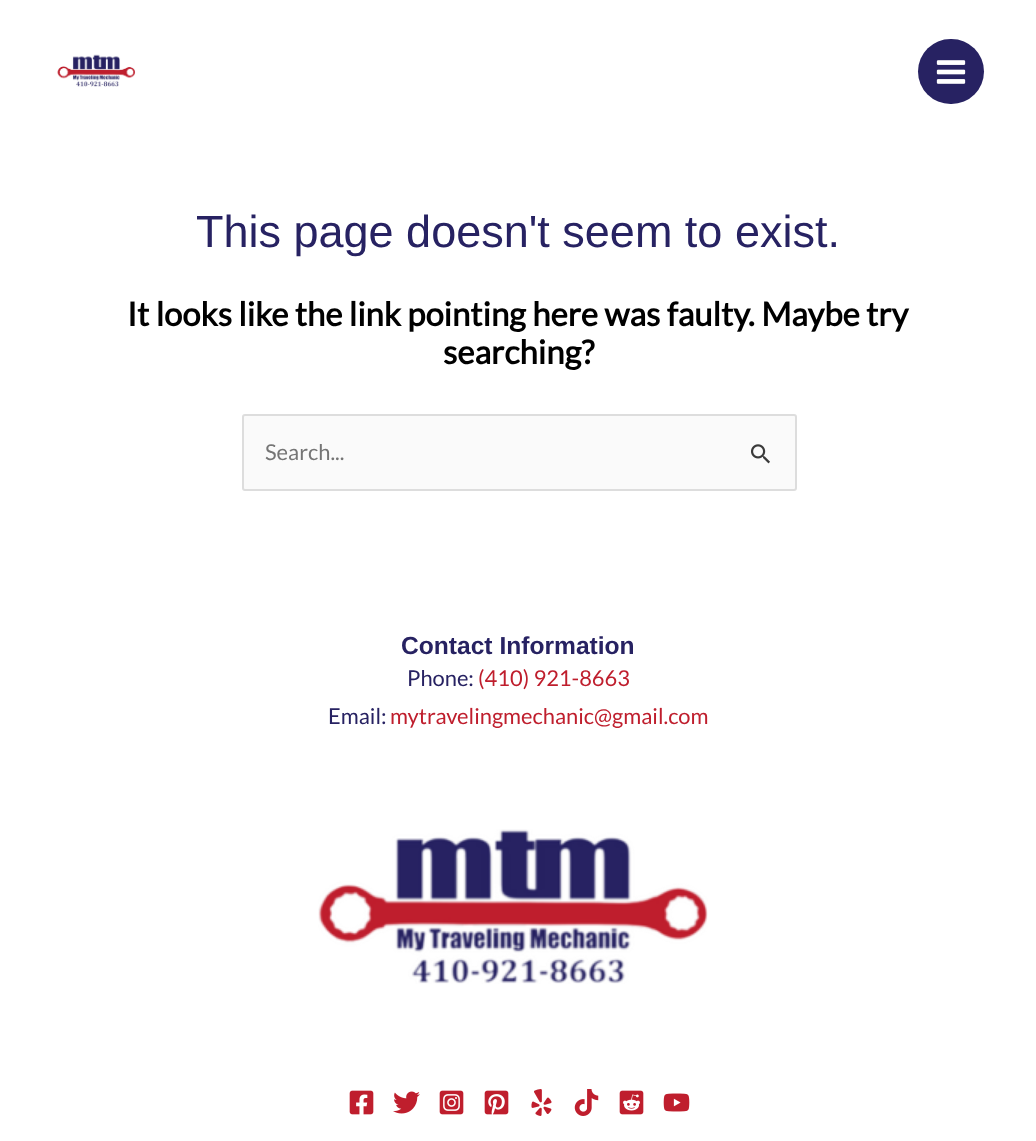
async function draw(canvas) {
	canvas.width = 1036;
	canvas.height = 1141;
	const c = canvas.getContext('2d');
	c.miterLimit = 4;
	c.fontKerning = 'normal';
	async function loadImage(src) {
		const img = new Image();
		img.src = src;
		await img.decode();
		return img;
	}

	c.fillStyle = '#fff';
	c.fillRect(0, 0, 1036, 1141);
	c.drawImage(await loadImage('img1.png'), 57, 54, 79, 33);
	c.fillStyle = '#272262';
	c.beginPath();
	c.roundRect(918, 39, 66, 65, 32.5);
	c.fill();
	c.drawImage(await loadImage('img2.png'), 936, 60, 30, 24);
	c.font = '45px Liberation Sans';
	c.fillText('This page doesn\'t seem to exist.', 196, 247);
	c.font = 'bold 32.8px Lato';
	c.fillStyle = '#000';
	c.fillText('It looks like the link pointing here was faulty. Maybe try', 127, 326);
	c.fillText('searching?', 443, 364);
	c.fillStyle = '#fafafa';
	c.beginPath();
	c.roundRect(243, 415, 553, 75, 2);
	c.fill();
	c.strokeStyle = '#ddd';
	c.lineWidth = 2;
	c.stroke();
	c.font = '21.9px Lato';
	c.fillStyle = '#757575';
	c.fillText('Search...', 265, 460);
	c.drawImage(await loadImage('img3.png'), 751, 444, 19, 20);
	c.font = 'bold 24.6px Liberation Sans';
	c.fillStyle = '#272262';
	c.fillText('Contact Information', 401, 654);
	c.font = '21.9px Lato';
	c.fillText('Phone:', 407, 686);
	c.fillStyle = '#bf1e2d';
	c.fillText('(410) 921-8663', 478, 686);
	c.fillStyle = '#272262';
	c.fillText('Email:', 328, 724);
	c.fillStyle = '#bf1e2d';
	c.fillText('mytravelingmechanic@gmail.com', 390, 724);
	c.drawImage(await loadImage('img4.png'), 318, 829, 390, 155);
	c.drawImage(await loadImage('img5.png'), 349, 1090, 25, 25);
	c.drawImage(await loadImage('img6.png'), 393, 1091, 27, 23);
	c.drawImage(await loadImage('img7.png'), 439, 1090, 25, 25);
	c.drawImage(await loadImage('img8.png'), 484, 1090, 25, 25);
	c.drawImage(await loadImage('img9.png'), 531, 1089, 21, 27);
	c.drawImage(await loadImage('img10.png'), 574, 1089, 25, 27);
	c.drawImage(await loadImage('img11.png'), 619, 1090, 25, 25);
	c.drawImage(await loadImage('img12.png'), 663, 1093, 27, 19);
}

draw(document.querySelector('canvas'));
